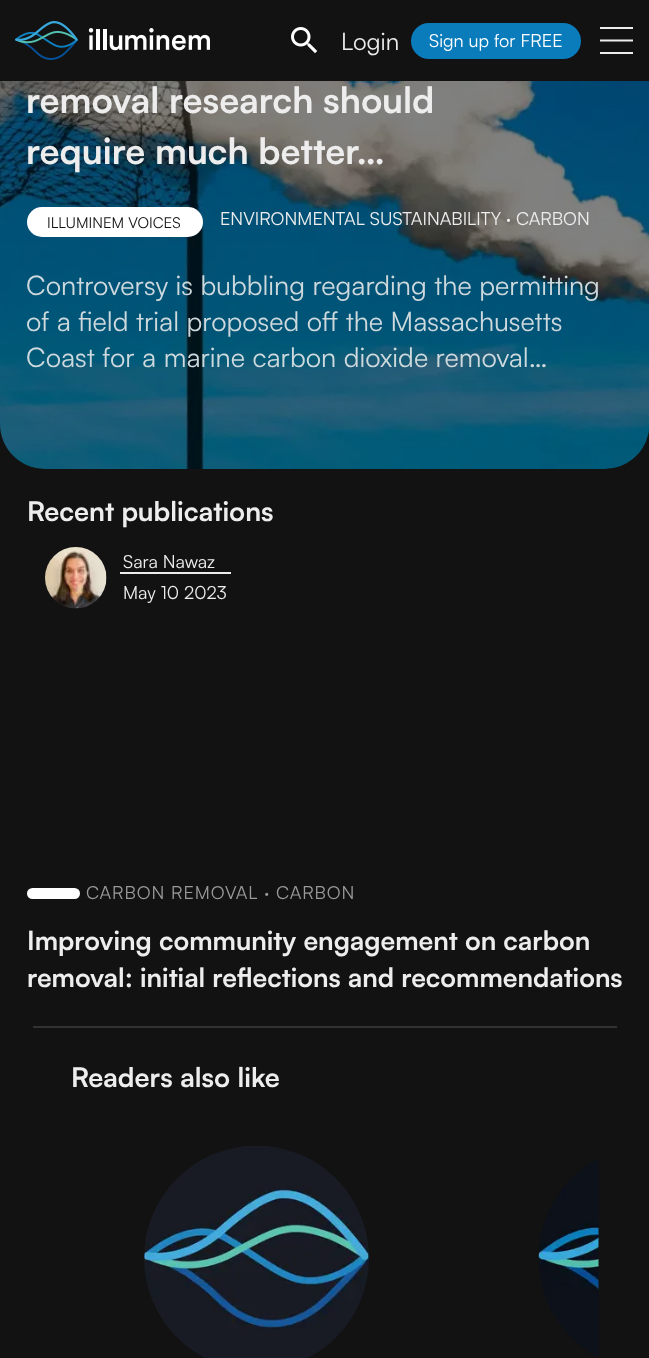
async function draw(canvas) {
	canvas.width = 649;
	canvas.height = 1358;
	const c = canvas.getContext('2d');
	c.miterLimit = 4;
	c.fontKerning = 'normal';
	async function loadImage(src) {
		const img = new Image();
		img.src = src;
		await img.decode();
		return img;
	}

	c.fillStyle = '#121212';
	c.fillRect(0, 0, 649, 1358);
	c.drawImage(await loadImage('img1.png'), 15, 21, 195, 39);
	c.drawImage(await loadImage('img2.png'), 291, 27, 27, 27);
	c.font = '24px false';
	c.fillStyle = '#ededed';
	c.fillText('Login', 341, 50);
	c.fillStyle = '#0b7cbb';
	c.beginPath();
	c.roundRect(411, 23, 170, 36, 18);
	c.fill();
	c.font = '18px false';
	c.fillStyle = '#fff';
	c.fillText('Sign up for FREE', 429, 47);
	c.beginPath();
	c.moveTo(600, 40.5);
	c.lineTo(633, 40.5);
	c.strokeStyle = '#ededed';
	c.lineWidth = 2.1;
	c.stroke();
	c.fillStyle = '#ededed';
	c.fillRect(600, 27, 33, 2);
	c.fillRect(600, 52, 33, 2);
	c.drawImage(await loadImage('img3.png'), 0, 81, 649, 388);
	c.font = 'bold 36px false';
	c.fillText('removal research should', 26, 113);
	c.fillText('require much better…', 26, 164);
	c.fillStyle = '#fff';
	c.beginPath();
	c.roundRect(27, 207, 176, 30, 15);
	c.fill();
	c.font = '15px false';
	c.fillStyle = '#141414';
	c.fillText('ILLUMINEM VOICES', 47, 228);
	c.font = '18px false';
	c.fillStyle = '#ededed';
	c.fillText('ENVIRONMENTAL SUSTAINABILITY · CARBON', 220, 225);
	c.font = '27px false';
	c.fillStyle = '#ced9dd';
	for (const [text, x, y] of [
		['Controversy is bubbling regarding the permitting', 26, 295],
		['of a field trial proposed off the Massachusetts', 26, 331],
		['Coast for a marine carbon dioxide removal…', 26, 367],
	]) {
		c.fillText(text, x, y);
	}
	c.font = 'bold 27px false';
	c.fillStyle = '#ededed';
	c.fillText('Recent publications', 27, 521);
	c.drawImage(await loadImage('img4.png'), 45, 547, 62, 62);
	c.fillRect(120, 572, 111, 2);
	c.font = '18px false';
	c.fillText('Sara Nawaz', 123, 568);
	c.fillText('May 10 2023', 123, 599);
	c.fillStyle = '#fff';
	c.beginPath();
	c.roundRect(27, 888, 53, 11, 5.5);
	c.fill();
	c.letterSpacing = '0.9px';
	c.fillStyle = '#999';
	c.fillText('CARBON REMOVAL · CARBON', 86, 899);
	c.letterSpacing = '0px';
	c.font = 'bold 26.4px false';
	c.fillStyle = '#ededed';
	c.fillText('Improving community engagement on carbon', 27, 950);
	c.fillText('removal: initial reflections and recommendations', 27, 987);
	c.fillStyle = '#323232';
	c.fillRect(33, 1026, 584, 2);
	c.font = 'bold 27px false';
	c.fillStyle = '#ededed';
	c.fillText('Readers also like', 71, 1087);
	c.drawImage(await loadImage('img5.png'), 144, 1145, 225, 213);
	c.drawImage(await loadImage('img6.png'), 538, 1159, 61, 198);
}

draw(document.querySelector('canvas'));
